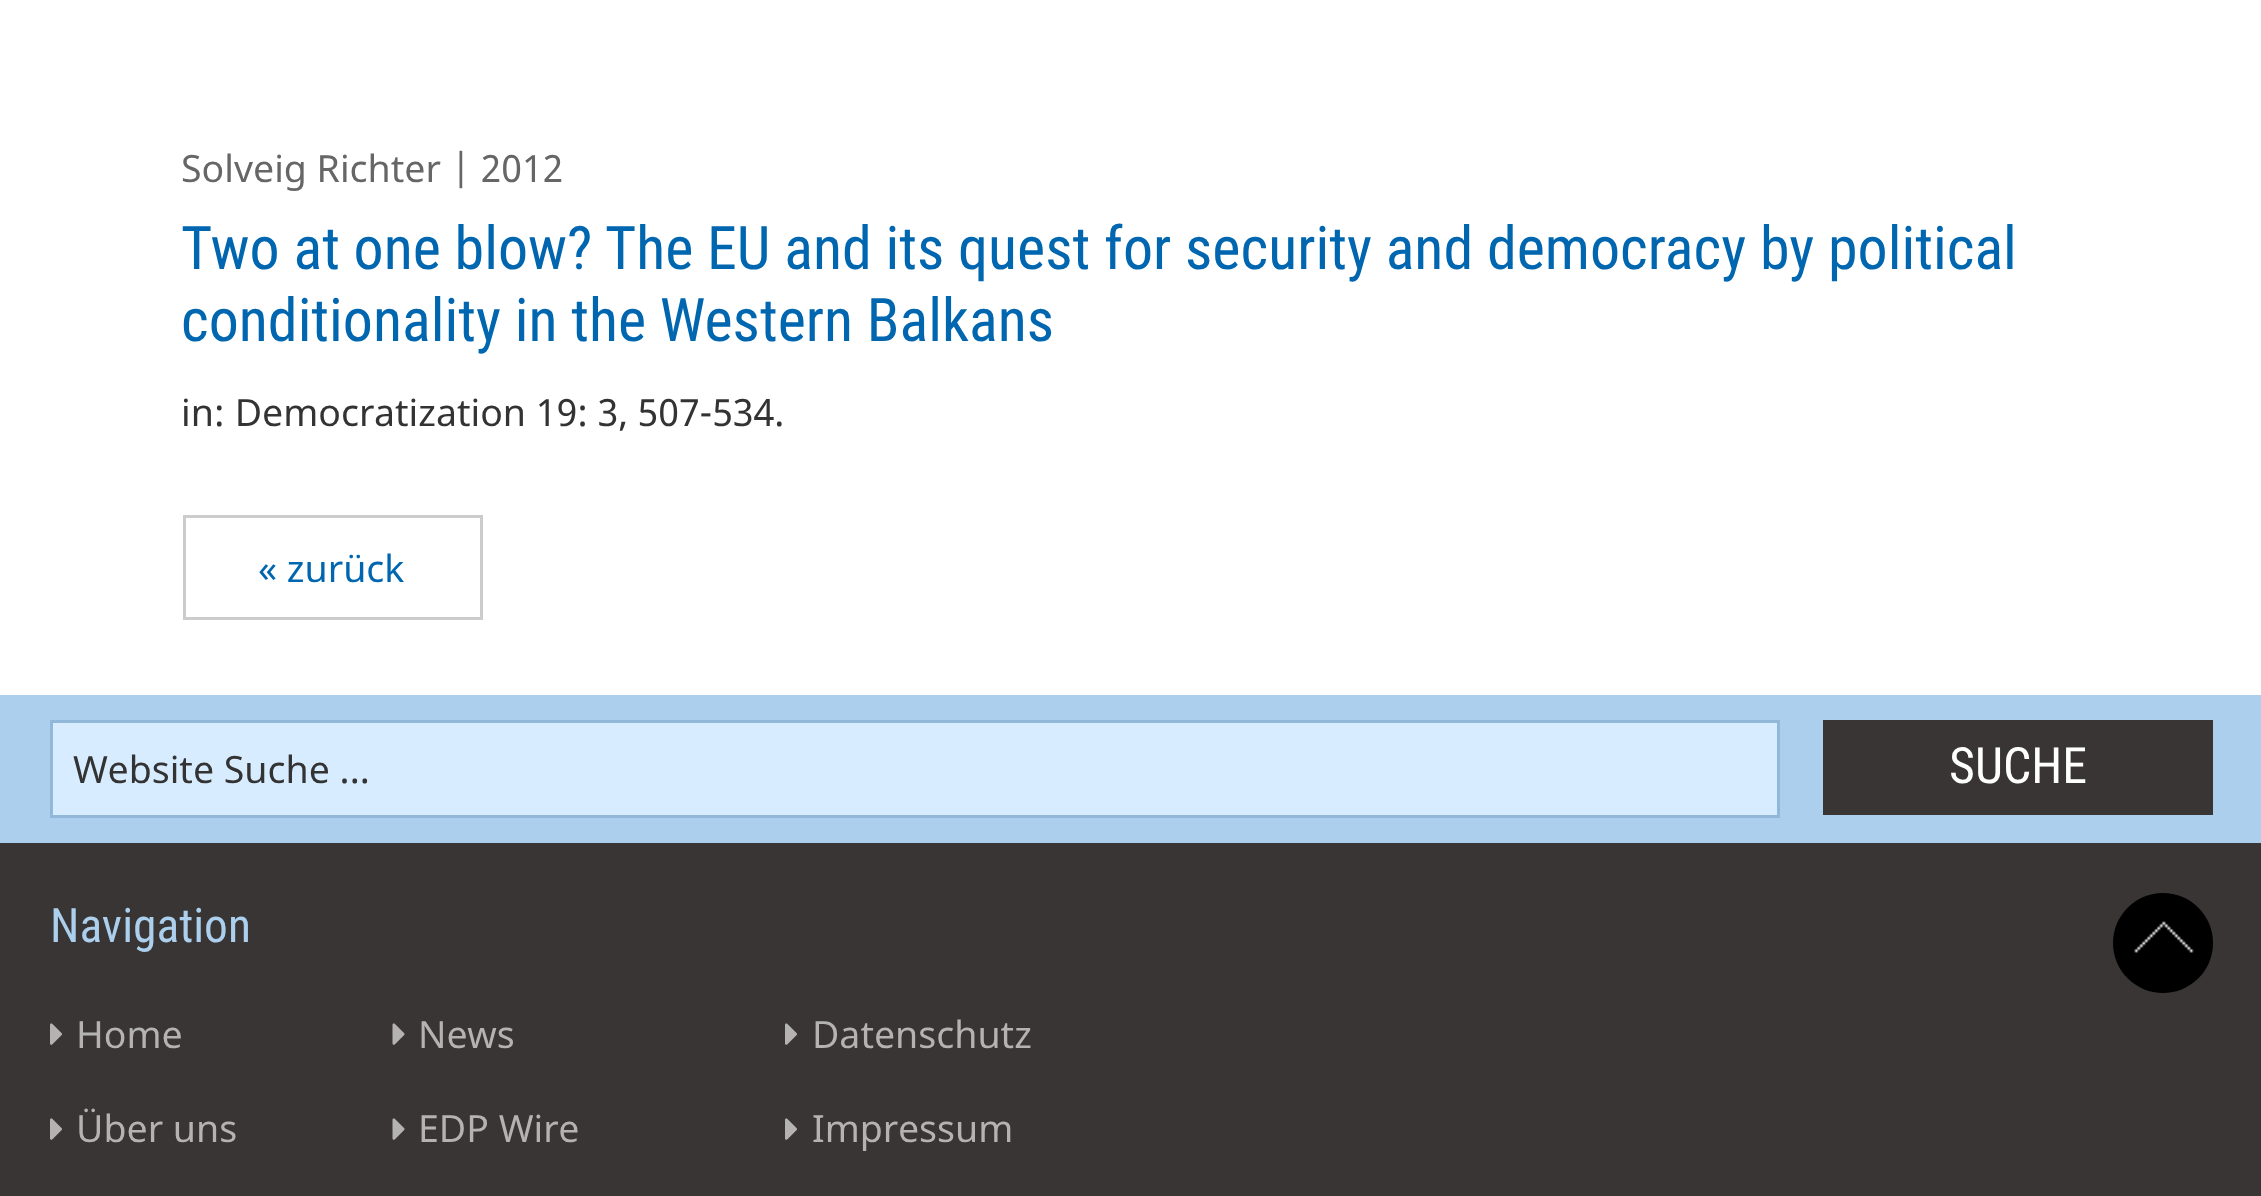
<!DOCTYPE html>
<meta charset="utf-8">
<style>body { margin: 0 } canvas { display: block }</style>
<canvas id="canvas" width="2261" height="1196"></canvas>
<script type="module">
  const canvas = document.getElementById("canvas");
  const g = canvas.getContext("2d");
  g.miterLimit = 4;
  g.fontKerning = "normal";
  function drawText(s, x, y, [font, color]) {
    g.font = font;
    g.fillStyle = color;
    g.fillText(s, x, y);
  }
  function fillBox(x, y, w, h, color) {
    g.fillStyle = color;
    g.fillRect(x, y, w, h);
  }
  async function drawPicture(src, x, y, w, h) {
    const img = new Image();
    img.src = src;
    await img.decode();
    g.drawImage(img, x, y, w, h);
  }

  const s1 = ["37.5px Noto Sans", "#666666"];
  const s2 = ["60px Roboto Condensed", "#0066AF"];
  const s3 = ["37.5px Noto Sans", "#333333"];
  const s4 = ["37.5px Noto Sans", "#0066AF"];
  const s5 = ["50px Roboto Condensed", "#FFFFFF"];
  const s6 = ["47.5px Roboto Condensed", "#ABCFED"];
  const s7 = ["37.5px Noto Sans", "#B4B3B2"];

  fillBox(0, 0, 2261, 1196, "#FFFFFF");
  drawText("Solveig Richter | 2012", 181, 182, s1);
  drawText("Two at one blow? The EU and its quest for security and democracy by political", 181, 269, s2);
  drawText("conditionality in the Western Balkans", 181, 341, s2);
  drawText("in: Democratization 19: 3, 507-534.", 181, 426, s3);
  g.strokeStyle = "#CCCCCC";
  g.lineWidth = 3;
  g.strokeRect(184.5, 516.5, 297, 102);
  drawText("« zurück", 258, 582, s4);
  fillBox(0, 843, 2261, 353, "#383534");
  fillBox(0, 695, 2261, 148, "#ABCFED");
  g.fillStyle = "#D7EDFF";
  g.beginPath();
  g.rect(51.5, 721.5, 1727, 95);
  g.fill();
  g.strokeStyle = "#91B8D8";
  g.stroke();
  drawText("Website Suche ...", 73, 783, s3);
  fillBox(1823, 720, 390, 95, "#383534");
  drawText("SUCHE", 1949, 783, s5);
  drawText("Navigation", 50, 942, s6);
  g.fillStyle = "#000000";
  g.beginPath();
  g.arc(2163, 943, 50, 0, Math.PI * 2);
  g.fill();
  await drawPicture("pic1.png", 2134, 921, 60, 32);
  await drawPicture("pic2.png", 50, 1023, 12, 22);
  drawText("Home", 76, 1048, s7);
  await drawPicture("pic2.png", 50, 1118, 12, 22);
  drawText("Über uns", 76, 1142, s7);
  await drawPicture("pic3.png", 392, 1023, 13, 22);
  drawText("News", 418, 1048, s7);
  await drawPicture("pic3.png", 392, 1118, 13, 22);
  drawText("EDP Wire", 418, 1142, s7);
  await drawPicture("pic2.png", 785, 1023, 12, 22);
  drawText("Datenschutz", 812, 1048, s7);
  await drawPicture("pic2.png", 785, 1118, 12, 22);
  drawText("Impressum", 812, 1142, s7);
</script>
